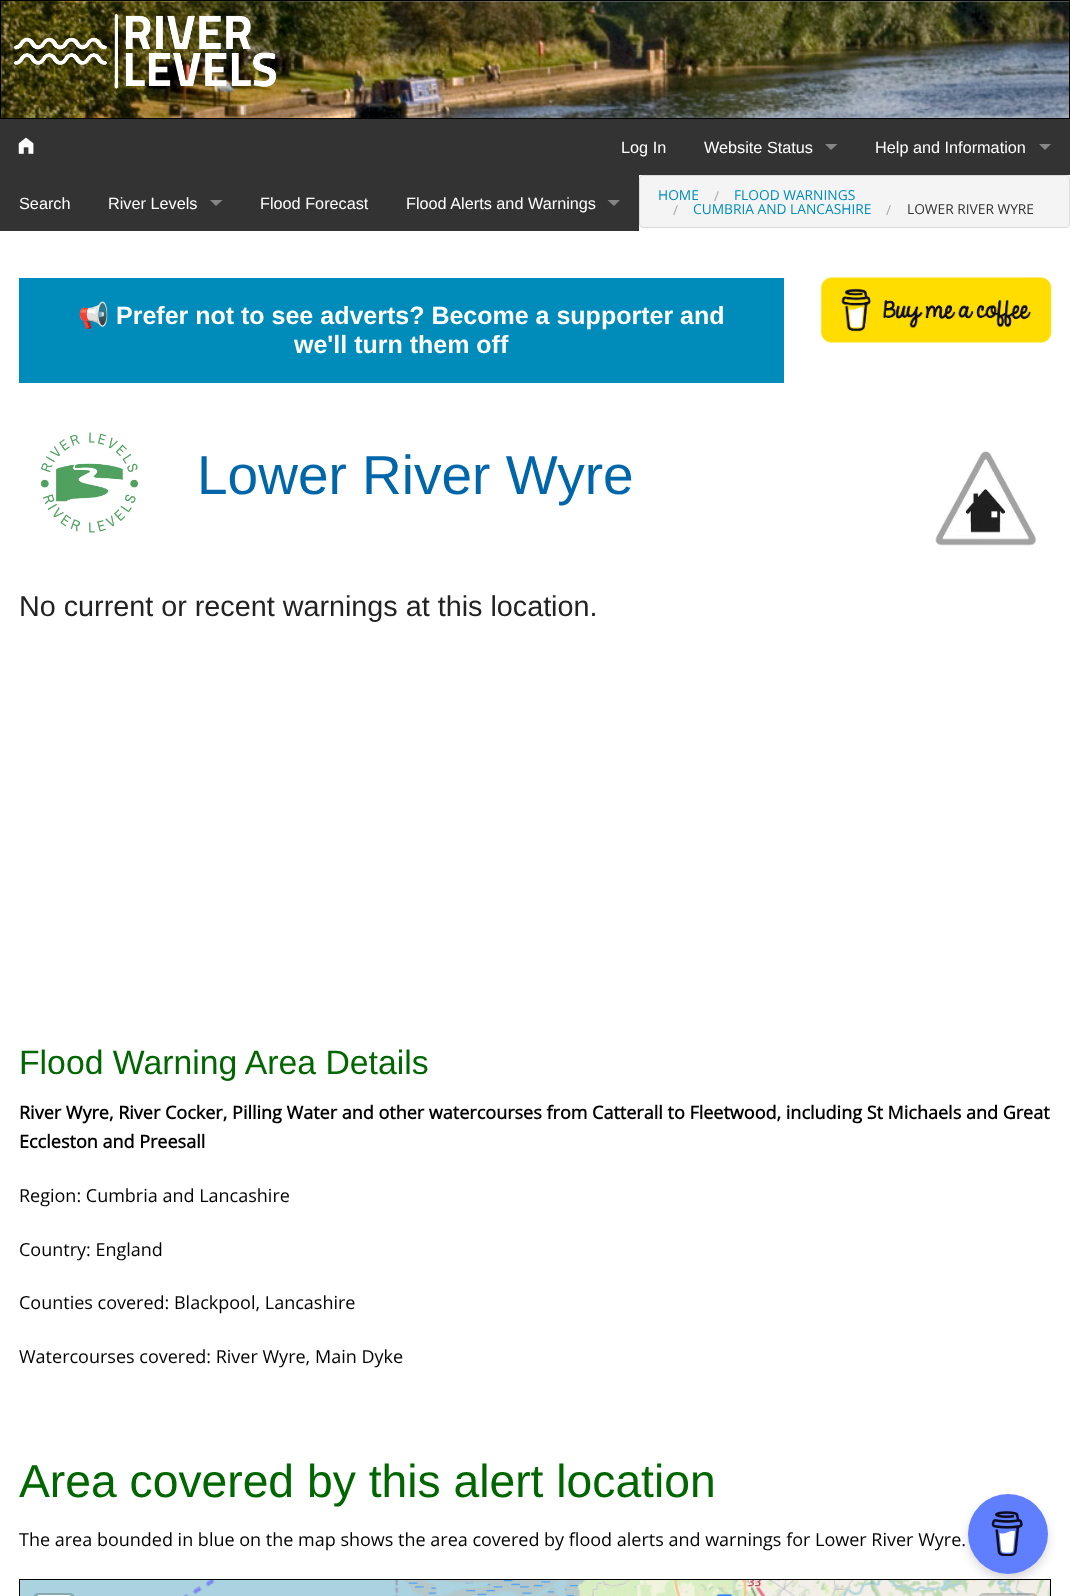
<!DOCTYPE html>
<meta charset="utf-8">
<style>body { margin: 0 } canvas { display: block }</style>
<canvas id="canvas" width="1070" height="1596"></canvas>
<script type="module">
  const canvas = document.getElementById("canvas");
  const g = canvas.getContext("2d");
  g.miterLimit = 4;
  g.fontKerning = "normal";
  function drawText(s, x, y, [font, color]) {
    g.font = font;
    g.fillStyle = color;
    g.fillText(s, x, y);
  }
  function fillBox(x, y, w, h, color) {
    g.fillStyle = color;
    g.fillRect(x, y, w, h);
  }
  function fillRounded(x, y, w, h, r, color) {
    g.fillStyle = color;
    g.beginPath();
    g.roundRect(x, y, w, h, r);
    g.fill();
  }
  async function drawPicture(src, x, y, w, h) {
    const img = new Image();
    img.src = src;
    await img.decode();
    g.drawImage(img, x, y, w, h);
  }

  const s1 = ["16.25px Liberation Sans", "#FFFFFF"];
  const s2 = ["13.75px Open Sans", "#008CBA"];
  const s3 = ["13.75px Open Sans", "#AAAAAA"];
  const s4 = ["13.75px Open Sans", "#333333"];
  const s5 = ["bold 25px Noto Color Emoji", "#FFFFFF"];
  const s6 = ["bold 25px Liberation Sans", "#FFFFFF"];
  const s7 = ["55px Liberation Sans", "#0066AA"];
  const s8 = ["28.75px Liberation Sans", "#222222"];
  const s9 = ["33.75px Liberation Sans", "#006600"];
  const s10 = ["bold 18px Open Sans", "#000000"];
  const s11 = ["18px Open Sans", "#000000"];
  const s12 = ["46.25px Liberation Sans", "#006600"];

  fillBox(0, 0, 1070, 1596, "#FFFFFF");
  await drawPicture("pic1.png", 1, 1, 1068, 117);
  g.strokeStyle = "#000000";
  g.strokeRect(0.5, 0.5, 1069, 118);
  await drawPicture("pic2.png", 13, 13, 264, 76);
  fillBox(0, 119, 1070, 56, "#333333");
  await drawPicture("pic3.png", 18, 137, 16, 17);
  drawText("Log In", 621, 153, s1);
  drawText("Website Status", 704, 153, s1);
  g.fillStyle = "#858585";
  g.beginPath();
  g.moveTo(825, 144);
  g.lineTo(837.5, 144);
  g.lineTo(831, 150);
  g.closePath();
  g.fill();
  drawText("Help and Information", 875, 153, s1);
  g.fillStyle = "#858585";
  g.beginPath();
  g.moveTo(1039, 144);
  g.lineTo(1051, 144);
  g.lineTo(1045, 150);
  g.closePath();
  g.fill();
  fillBox(0, 175, 89, 56, "#333333");
  drawText("Search", 19, 209, s1);
  fillBox(89, 175, 550, 56, "#333333");
  drawText("River Levels", 108, 209, s1);
  g.fillStyle = "#858585";
  g.beginPath();
  g.moveTo(210, 200);
  g.lineTo(222.5, 200);
  g.lineTo(216, 206);
  g.closePath();
  g.fill();
  drawText("Flood Forecast", 260, 209, s1);
  drawText("Flood Alerts and Warnings", 406, 209, s1);
  g.fillStyle = "#858585";
  g.beginPath();
  g.moveTo(607.5, 200);
  g.lineTo(620, 200);
  g.lineTo(614, 206);
  g.closePath();
  g.fill();
  g.fillStyle = "#F4F4F4";
  g.beginPath();
  g.roundRect(639.5, 175.5, 430, 52, 3.5);
  g.fill();
  g.strokeStyle = "#DCDCDC";
  g.stroke();
  drawText("HOME", 658, 200, s2);
  drawText("/", 714, 201, s3);
  drawText("FLOOD WARNINGS", 734, 200, s2);
  drawText("/", 673, 215, s3);
  drawText("CUMBRIA AND LANCASHIRE", 693, 214, s2);
  drawText("/", 886, 215, s3);
  drawText("LOWER RIVER WYRE", 907, 214, s4);
  fillBox(19, 278, 765, 105, "#008CBA");
  drawText("📢", 78, 324, s5);
  drawText("Prefer not to see adverts? Become a supporter and", 116, 324, s6);
  drawText("we'll turn them off", 294, 353, s6);
  await drawPicture("pic4.png", 821, 277, 231, 66);
  await drawPicture("pic5.png", 41, 432, 97, 101);
  drawText("Lower River Wyre", 197, 494, s7);
  await drawPicture("pic6.png", 935, 451, 102, 95);
  drawText("No current or recent warnings at this location.", 19, 616, s8);
  drawText("Flood Warning Area Details", 19, 1074, s9);
  drawText("River Wyre, River Cocker, Pilling Water and other watercourses from Catterall to Fleetwood, including St Michaels and Great", 19, 1119, s10);
  drawText("Eccleston and Preesall", 19, 1148, s10);
  drawText("Region: Cumbria and Lancashire", 19, 1202, s11);
  drawText("Country: England", 19, 1256, s11);
  drawText("Counties covered: Blackpool, Lancashire", 19, 1309, s11);
  drawText("Watercourses covered: River Wyre, Main Dyke", 19, 1363, s11);
  drawText("Area covered by this alert location", 19, 1497, s12);
  drawText("The area bounded in blue on the map shows the area covered by flood alerts and warnings for Lower River Wyre.", 19, 1546, s11);
  g.strokeStyle = "#000000";
  g.strokeRect(19.5, 1579.5, 1031, 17);
  fillBox(20, 1580, 35, 16, "#AAD3DF");
  await drawPicture("pic7.png", 55, 1580, 320, 16);
  await drawPicture("pic8.png", 375, 1580, 320, 16);
  await drawPicture("pic9.png", 695, 1580, 320, 16);
  await drawPicture("pic10.png", 1015, 1580, 35, 16);
  await drawPicture("pic11.png", 716, 1594, 16, 2);
  g.beginPath();
  g.roundRect(34.5, 1594.5, 39, 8, 3.5);
  g.strokeStyle = "#88A9B2";
  g.lineWidth = 3;
  g.stroke();
  g.fillStyle = "#FFFFFF";
  g.beginPath();
  g.moveTo(40, 1595);
  g.lineTo(68, 1595);
  g.bezierCurveTo(71, 1595, 73, 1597, 73, 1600);
  g.lineTo(73, 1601);
  g.lineTo(35, 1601);
  g.lineTo(35, 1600);
  g.bezierCurveTo(35, 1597, 37, 1595, 40, 1595);
  g.closePath();
  g.fill();
  fillRounded(980, 1595, 55, 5, 4, "#FFFFFF");
  g.beginPath();
  g.roundRect(979.5, 1594.5, 57, 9, 4.5);
  g.strokeStyle = "rgba(0, 0, 0, 0.2)";
  g.stroke();
  g.fillStyle = "rgba(0, 0, 0, 0.15)";
  g.filter = "blur(5px)";
  g.beginPath();
  g.roundRect(968, 1499, 80, 80, 40);
  g.fill();
  g.filter = "none";
  g.fillStyle = "#5F7FFF";
  g.beginPath();
  g.arc(1008, 1534, 40, 0, Math.PI * 2);
  g.fill();
  await drawPicture("pic12.png", 991, 1511, 32, 45);
</script>
